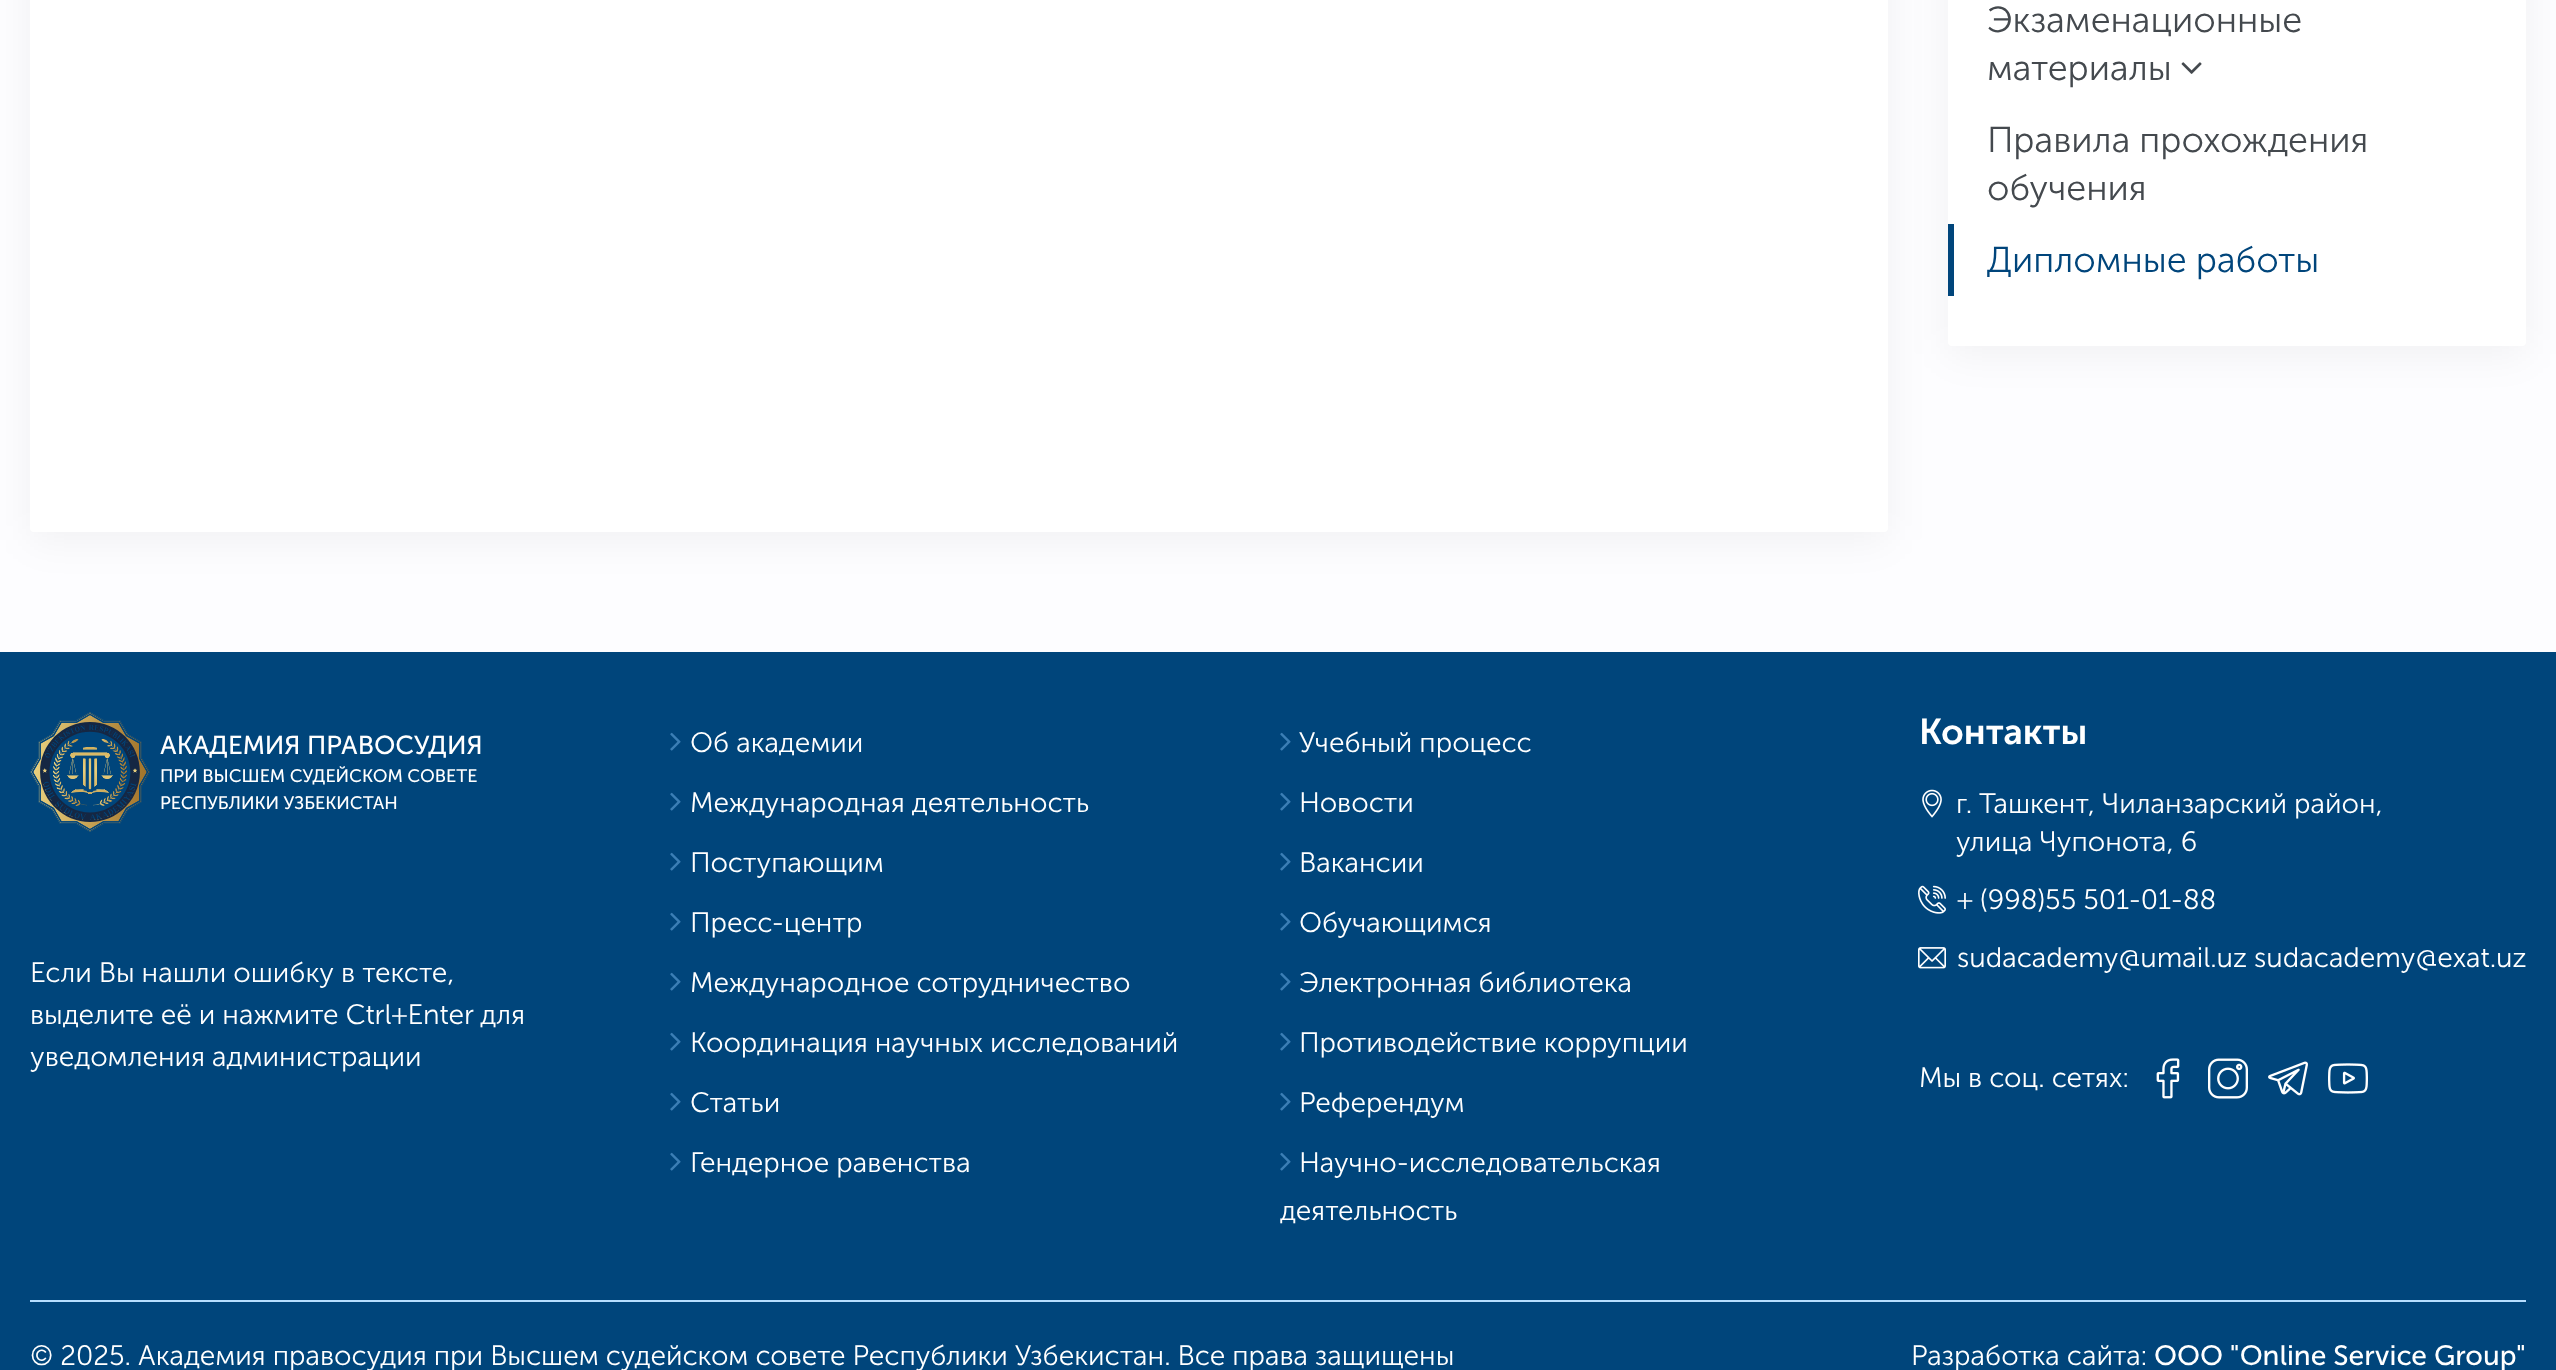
<!DOCTYPE html>
<meta charset="utf-8">
<style>body { margin: 0 } canvas { display: block }</style>
<canvas id="canvas" width="2556" height="1370"></canvas>
<script type="module">
  const canvas = document.getElementById("canvas");
  const g = canvas.getContext("2d");
  g.miterLimit = 4;
  g.fontKerning = "normal";
  function drawText(s, x, y, [font, color]) {
    g.font = font;
    g.fillStyle = color;
    g.fillText(s, x, y);
  }
  function fillBox(x, y, w, h, color) {
    g.fillStyle = color;
    g.fillRect(x, y, w, h);
  }
  function fillRounded(x, y, w, h, r, color) {
    g.fillStyle = color;
    g.beginPath();
    g.roundRect(x, y, w, h, r);
    g.fill();
  }
  async function drawPicture(src, x, y, w, h) {
    const img = new Image();
    img.src = src;
    await img.decode();
    g.drawImage(img, x, y, w, h);
  }

  const s1 = ["300 36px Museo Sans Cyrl", "#44494E"];
  const s2 = ["300 36px Museo Sans Cyrl", "#00457B"];
  const s3 = ["26px Museo Sans Cyrl", "#FFFFFF"];
  const s4 = ["18px Museo Sans Cyrl", "#FFFFFF"];
  const s5 = ["300 28px Museo Sans Cyrl", "#FFFFFF"];
  const s6 = ["600 36px Museo Sans Cyrl", "#FFFFFF"];
  const s7 = ["28px Museo Sans Cyrl", "#FFFFFF"];

  fillBox(0, 0, 2556, 1370, "#FDFDFF");
  g.fillStyle = "rgba(0, 0, 0, 0.05)";
  g.filter = "blur(20px)";
  g.beginPath();
  g.roundRect(30, -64, 1858, 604, 4);
  g.fill();
  g.filter = "none";
  fillRounded(30, -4, 1858, 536, 4, "#FFFFFF");
  g.fillStyle = "rgba(0, 0, 0, 0.05)";
  g.filter = "blur(20px)";
  g.beginPath();
  g.roundRect(1948, -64, 578, 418, 4);
  g.fill();
  g.filter = "none";
  fillRounded(1948, -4, 578, 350, 4, "#FFFFFF");
  drawText("Экзаменационные", 1987, 32, s1);
  drawText("материалы", 1987, 80, s1);
  await drawPicture("pic1.png", 2181, 62, 21, 12);
  drawText("Правила прохождения", 1987, 152, s1);
  drawText("обучения", 1987, 200, s1);
  fillBox(1948, 224, 6, 72, "#00457B");
  drawText("Дипломные работы", 1987, 272, s2);
  fillBox(0, 652, 2556, 718, "#00457B");
  await drawPicture("pic2.png", 30, 712, 120, 120);
  drawText("АКАДЕМИЯ ПРАВОСУДИЯ", 160, 754, s3);
  drawText("ПРИ ВЫСШЕМ СУДЕЙСКОМ СОВЕТЕ", 160, 782, s4);
  drawText("РЕСПУБЛИКИ УЗБЕКИСТАН", 160, 809, s4);
  drawText("Если Вы нашли ошибку в тексте,", 30, 982, s5);
  drawText("выделите её и нажмите Ctrl+Enter для", 30, 1024, s5);
  drawText("уведомления администрации", 30, 1066, s5);
  await drawPicture("pic3.png", 670, 732, 11, 19);
  drawText("Об академии", 690, 752, s5);
  await drawPicture("pic3.png", 1280, 732, 11, 19);
  drawText("Учебный процесс", 1299, 752, s5);
  await drawPicture("pic3.png", 670, 792, 11, 19);
  drawText("Международная деятельность", 690, 812, s5);
  await drawPicture("pic3.png", 1280, 792, 11, 19);
  drawText("Новости", 1299, 812, s5);
  await drawPicture("pic3.png", 670, 852, 11, 19);
  drawText("Поступающим", 690, 872, s5);
  await drawPicture("pic3.png", 1280, 852, 11, 19);
  drawText("Вакансии", 1299, 872, s5);
  await drawPicture("pic3.png", 670, 912, 11, 19);
  drawText("Пресс-центр", 690, 932, s5);
  await drawPicture("pic3.png", 1280, 912, 11, 19);
  drawText("Обучающимся", 1299, 932, s5);
  await drawPicture("pic3.png", 670, 972, 11, 19);
  drawText("Международное сотрудничество", 690, 992, s5);
  await drawPicture("pic3.png", 1280, 972, 11, 19);
  drawText("Электронная библиотека", 1299, 992, s5);
  await drawPicture("pic3.png", 670, 1032, 11, 19);
  drawText("Координация научных исследований", 690, 1052, s5);
  await drawPicture("pic3.png", 1280, 1032, 11, 19);
  drawText("Противодействие коррупции", 1299, 1052, s5);
  await drawPicture("pic3.png", 670, 1092, 11, 19);
  drawText("Статьи", 690, 1112, s5);
  await drawPicture("pic3.png", 1280, 1092, 11, 19);
  drawText("Референдум", 1299, 1112, s5);
  await drawPicture("pic3.png", 670, 1152, 11, 19);
  drawText("Гендерное равенства", 690, 1172, s5);
  await drawPicture("pic3.png", 1280, 1152, 11, 19);
  drawText("Научно-исследовательская", 1299, 1172, s5);
  drawText("деятельность", 1280, 1220, s5);
  drawText("Контакты", 1919, 744, s6);
  await drawPicture("pic4.png", 1922, 789, 20, 29);
  drawText("г. Ташкент, Чиланзарский район,", 1956, 813, s5);
  drawText("улица Чупонота, 6", 1956, 851, s5);
  await drawPicture("pic5.png", 1918, 885, 28, 29);
  drawText("+ (998)55 501-01-88", 1957, 909, s5);
  await drawPicture("pic6.png", 1918, 947, 28, 22);
  drawText("sudacademy@umail.uz sudacademy@exat.uz", 1957, 967, s5);
  drawText("Мы в соц. сетях:", 1919, 1087, s5);
  await drawPicture("pic7.png", 2156, 1058, 24, 41);
  await drawPicture("pic8.png", 2208, 1058, 40, 41);
  await drawPicture("pic9.png", 2268, 1061, 40, 35);
  await drawPicture("pic10.png", 2328, 1063, 40, 31);
  fillBox(30, 1300, 2496, 2, "#B7DEFF");
  drawText("© 2025. Академия правосудия при Высшем судейском совете Республики Узбекистан. Все права защищены", 30, 1365, s5);
  drawText("Разработка сайта:", 1911, 1365, s5);
  drawText("ООО \"Online Service Group\"", 2154, 1365, s7);
</script>
